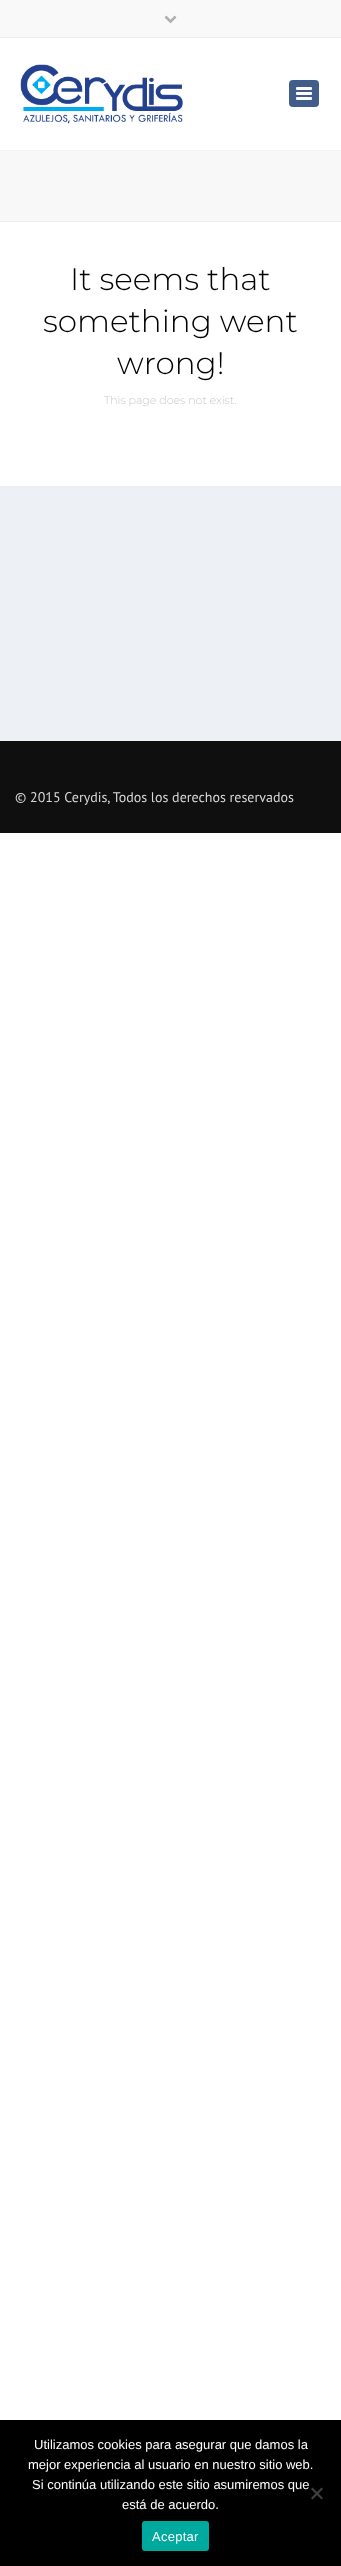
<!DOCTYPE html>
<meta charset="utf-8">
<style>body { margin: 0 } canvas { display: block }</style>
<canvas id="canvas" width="341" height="2566"></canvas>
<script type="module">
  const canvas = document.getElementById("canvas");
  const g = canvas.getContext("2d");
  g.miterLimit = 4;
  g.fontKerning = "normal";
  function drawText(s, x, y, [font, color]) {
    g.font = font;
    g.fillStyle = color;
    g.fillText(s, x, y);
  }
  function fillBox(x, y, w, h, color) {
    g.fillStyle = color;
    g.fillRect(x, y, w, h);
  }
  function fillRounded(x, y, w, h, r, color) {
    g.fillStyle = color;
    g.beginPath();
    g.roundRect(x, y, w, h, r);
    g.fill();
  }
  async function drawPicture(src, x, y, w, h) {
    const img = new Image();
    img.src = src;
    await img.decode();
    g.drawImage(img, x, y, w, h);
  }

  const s1 = ["300 31px Montserrat", "#000000"];
  const s2 = ["300 11px Montserrat", "#C7C7C7"];
  const s3 = ["14px PT Sans", "#D9D9D9"];
  const s4 = ["13px Liberation Sans", "#FFFFFF"];

  fillBox(0, 0, 341, 2566, "#FFFFFF");
  fillBox(0, 0, 341, 37, "#F9F9F9");
  fillBox(0, 37, 341, 1, "#EDEDED");
  await drawPicture("pic1.png", 164, 15, 13, 9);
  fillBox(0, 150, 341, 1, "#F2F2F2");
  await drawPicture("pic2.png", 20, 64, 163, 60);
  fillRounded(289, 80, 30, 27, 4, "#415E8A");
  fillRounded(296, 87, 16, 3, 1, "#FFFFFF");
  fillRounded(296, 92, 16, 3, 1, "#FFFFFF");
  fillRounded(296, 97, 16, 3, 1, "#FFFFFF");
  fillBox(0, 151, 341, 70, "#F8F8F8");
  fillBox(0, 221, 341, 1, "#EDEDED");
  drawText("It seems that", 70, 290, s1);
  drawText("something went", 43, 332, s1);
  drawText("wrong!", 117, 374, s1);
  drawText("This page does not exist.", 104, 404, s2);
  fillBox(0, 486, 341, 255, "#EDF0F5");
  fillBox(0, 741, 341, 92, "#0F0F0F");
  drawText("© 2015 Cerydis, Todos los derechos reservados", 15, 802, s3);
  fillBox(0, 2420, 341, 146, "#000000");
  drawText("Utilizamos cookies para asegurar que damos la", 34, 2449, s4);
  drawText("mejor experiencia al usuario en nuestro sitio web.", 28, 2469, s4);
  drawText("Si continúa utilizando este sitio asumiremos que", 32, 2489, s4);
  drawText("está de acuerdo.", 122, 2509, s4);
  g.fillStyle = "#404040";
  g.beginPath();
  g.moveTo(321.5, 2487.5);
  g.lineTo(323, 2489);
  g.lineTo(312.5, 2499.5);
  g.lineTo(311, 2498);
  g.closePath();
  g.fill();
  g.beginPath();
  g.moveTo(311, 2489);
  g.lineTo(312.5, 2487.5);
  g.lineTo(323, 2498);
  g.lineTo(321.5, 2499.5);
  g.closePath();
  g.fill();
  fillRounded(142, 2521, 67, 30, 3, "#00A99D");
  g.letterSpacing = "0.25px";
  drawText("Aceptar", 152, 2541, s4);
</script>
